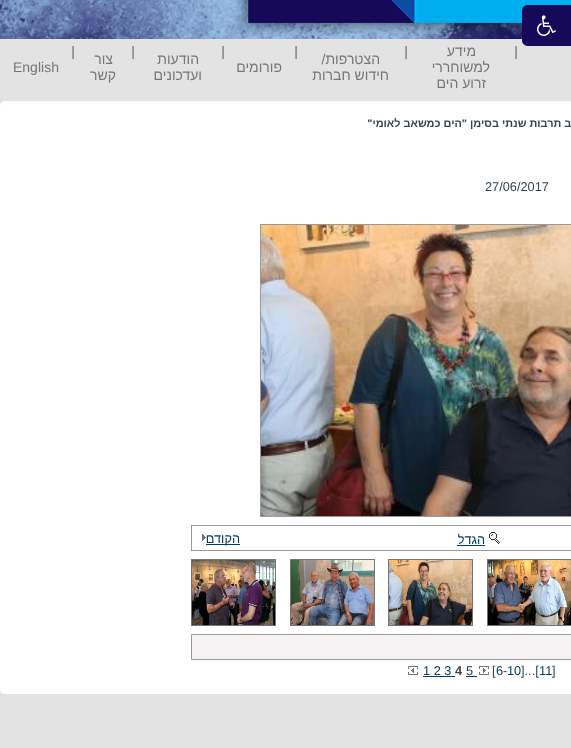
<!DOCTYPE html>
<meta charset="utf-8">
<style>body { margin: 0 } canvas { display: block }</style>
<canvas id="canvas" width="571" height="748"></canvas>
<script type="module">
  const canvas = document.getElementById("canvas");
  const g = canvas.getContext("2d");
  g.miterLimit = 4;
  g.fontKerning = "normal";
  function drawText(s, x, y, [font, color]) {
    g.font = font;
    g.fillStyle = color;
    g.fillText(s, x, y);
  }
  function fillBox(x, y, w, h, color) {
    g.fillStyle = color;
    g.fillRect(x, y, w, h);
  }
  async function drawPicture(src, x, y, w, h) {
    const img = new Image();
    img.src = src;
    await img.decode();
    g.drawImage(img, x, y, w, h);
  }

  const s1 = ["14px Liberation Sans", "#777676"];
  const s2 = ["bold 10.9px Liberation Sans", "#324750"];
  const s3 = ["12.75px Liberation Sans", "#324750"];
  const s4 = ["12.75px Liberation Sans", "#023C67"];
  const s5 = ["bold 12.75px Liberation Sans", "#324750"];

  fillBox(0, 0, 571, 748, "#E4E3E3");
  await drawPicture("pic2.png", 0, 0, 571, 39);
  g.fillStyle = "#160959";
  g.beginPath();
  g.moveTo(528, 5);
  g.lineTo(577, 5);
  g.lineTo(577, 46);
  g.lineTo(528, 46);
  g.bezierCurveTo(524.5, 46, 522, 43.5, 522, 40);
  g.lineTo(522, 11);
  g.bezierCurveTo(522, 7.5, 524.5, 5, 528, 5);
  g.closePath();
  g.fill();
  await drawPicture("pic1.png", 537, 15, 19, 21);
  await drawPicture("pic3.png", 515, 46, 2, 13);
  g.direction = "rtl";
  drawText("מידע", 476, 56, s1);
  drawText("למשוחררי", 490, 72, s1);
  drawText("זרוע הים", 486, 88, s1);
  await drawPicture("pic3.png", 405, 46, 2, 13);
  drawText("הצטרפות/", 380, 64, s1);
  drawText("חידוש חברות", 389, 80, s1);
  await drawPicture("pic3.png", 295, 46, 2, 13);
  drawText("פורומים", 282, 72, s1);
  await drawPicture("pic3.png", 222, 46, 2, 13);
  drawText("הודעות", 199, 64, s1);
  drawText("ועדכונים", 202, 80, s1);
  await drawPicture("pic3.png", 132, 46, 2, 13);
  drawText("צור", 113, 64, s1);
  drawText("קשר", 116, 80, s1);
  await drawPicture("pic3.png", 72, 46, 2, 13);
  g.direction = "ltr";
  drawText("English", 13, 72, s1);
  fillBox(0, 106, 571, 583, "#FFFFFF");
  fillBox(2, 101, 1, 1, "#ECEBEB");
  fillBox(3, 101, 1, 1, "#F8F8F8");
  fillBox(4, 101, 567, 1, "#FEFEFE");
  fillBox(1, 102, 1, 1, "#F2F1F1");
  fillBox(2, 102, 569, 1, "#FFFFFF");
  fillBox(0, 103, 1, 1, "#ECEBEB");
  fillBox(1, 103, 570, 2, "#FFFFFF");
  fillBox(0, 104, 1, 1, "#F8F8F8");
  fillBox(0, 105, 571, 1, "#FEFEFE");
  g.direction = "rtl";
  drawText("ערב תרבות שנתי בסימן \"הים כמשאב לאומי\"", 584, 127, s2);
  g.direction = "ltr";
  drawText("27/06/2017", 485, 191, s3);
  g.strokeStyle = "#9A9A9A";
  g.strokeRect(260.5, 224.5, 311, 292);
  await drawPicture("pic4.png", 261, 225, 310, 291);
  g.strokeRect(191.5, 525.5, 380, 25);
  await drawPicture("pic5.png", 489, 532, 11, 12);
  g.direction = "rtl";
  drawText("הגדל", 485, 544, s4);
  fillBox(457, 545, 28, 1, "#023C67");
  fillBox(206, 544, 34, 1, "#023C67");
  drawText("הקודם", 240, 543, s4);
  await drawPicture("pic6.png", 202, 534, 4, 7);
  g.strokeStyle = "#757575";
  g.strokeRect(487.5, 559.5, 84, 66);
  await drawPicture("pic7.png", 488, 560, 83, 65);
  g.strokeRect(388.5, 559.5, 84, 66);
  await drawPicture("pic8.png", 389, 560, 83, 65);
  g.strokeRect(290.5, 559.5, 84, 66);
  await drawPicture("pic9.png", 291, 560, 83, 65);
  g.strokeRect(191.5, 559.5, 84, 66);
  await drawPicture("pic10.png", 192, 560, 83, 65);
  g.fillStyle = "#F5F3F4";
  g.beginPath();
  g.rect(191.5, 634.5, 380, 25);
  g.fill();
  g.strokeStyle = "#9A9A9A";
  g.stroke();
  g.direction = "ltr";
  drawText("]", 552, 675, s3);
  drawText("11", 539, 675, s4);
  drawText("]...[", 521, 675, s3);
  drawText("10", 507, 675, s4);
  drawText("-", 503, 675, s3);
  drawText("6", 496, 675, s4);
  drawText("[", 492, 675, s3);
  await drawPicture("pic11.png", 479, 666, 10, 9);
  drawText("5", 466, 675, s4);
  fillBox(466, 676, 11, 1, "#023C67");
  drawText("4", 455, 675, s5);
  drawText("1 2 3", 423, 675, s4);
  fillBox(423, 676, 32, 1, "#023C67");
  await drawPicture("pic12.png", 408, 666, 10, 9);
  fillBox(0, 689, 571, 1, "#FEFEFE");
  fillBox(0, 690, 1, 1, "#F8F8F8");
  fillBox(1, 690, 570, 2, "#FFFFFF");
  fillBox(0, 691, 1, 1, "#ECEBEB");
  fillBox(1, 692, 1, 1, "#F2F1F1");
  fillBox(2, 692, 569, 1, "#FFFFFF");
  fillBox(2, 693, 1, 1, "#ECEBEB");
  fillBox(3, 693, 1, 1, "#F8F8F8");
  fillBox(4, 693, 567, 1, "#FEFEFE");
</script>
